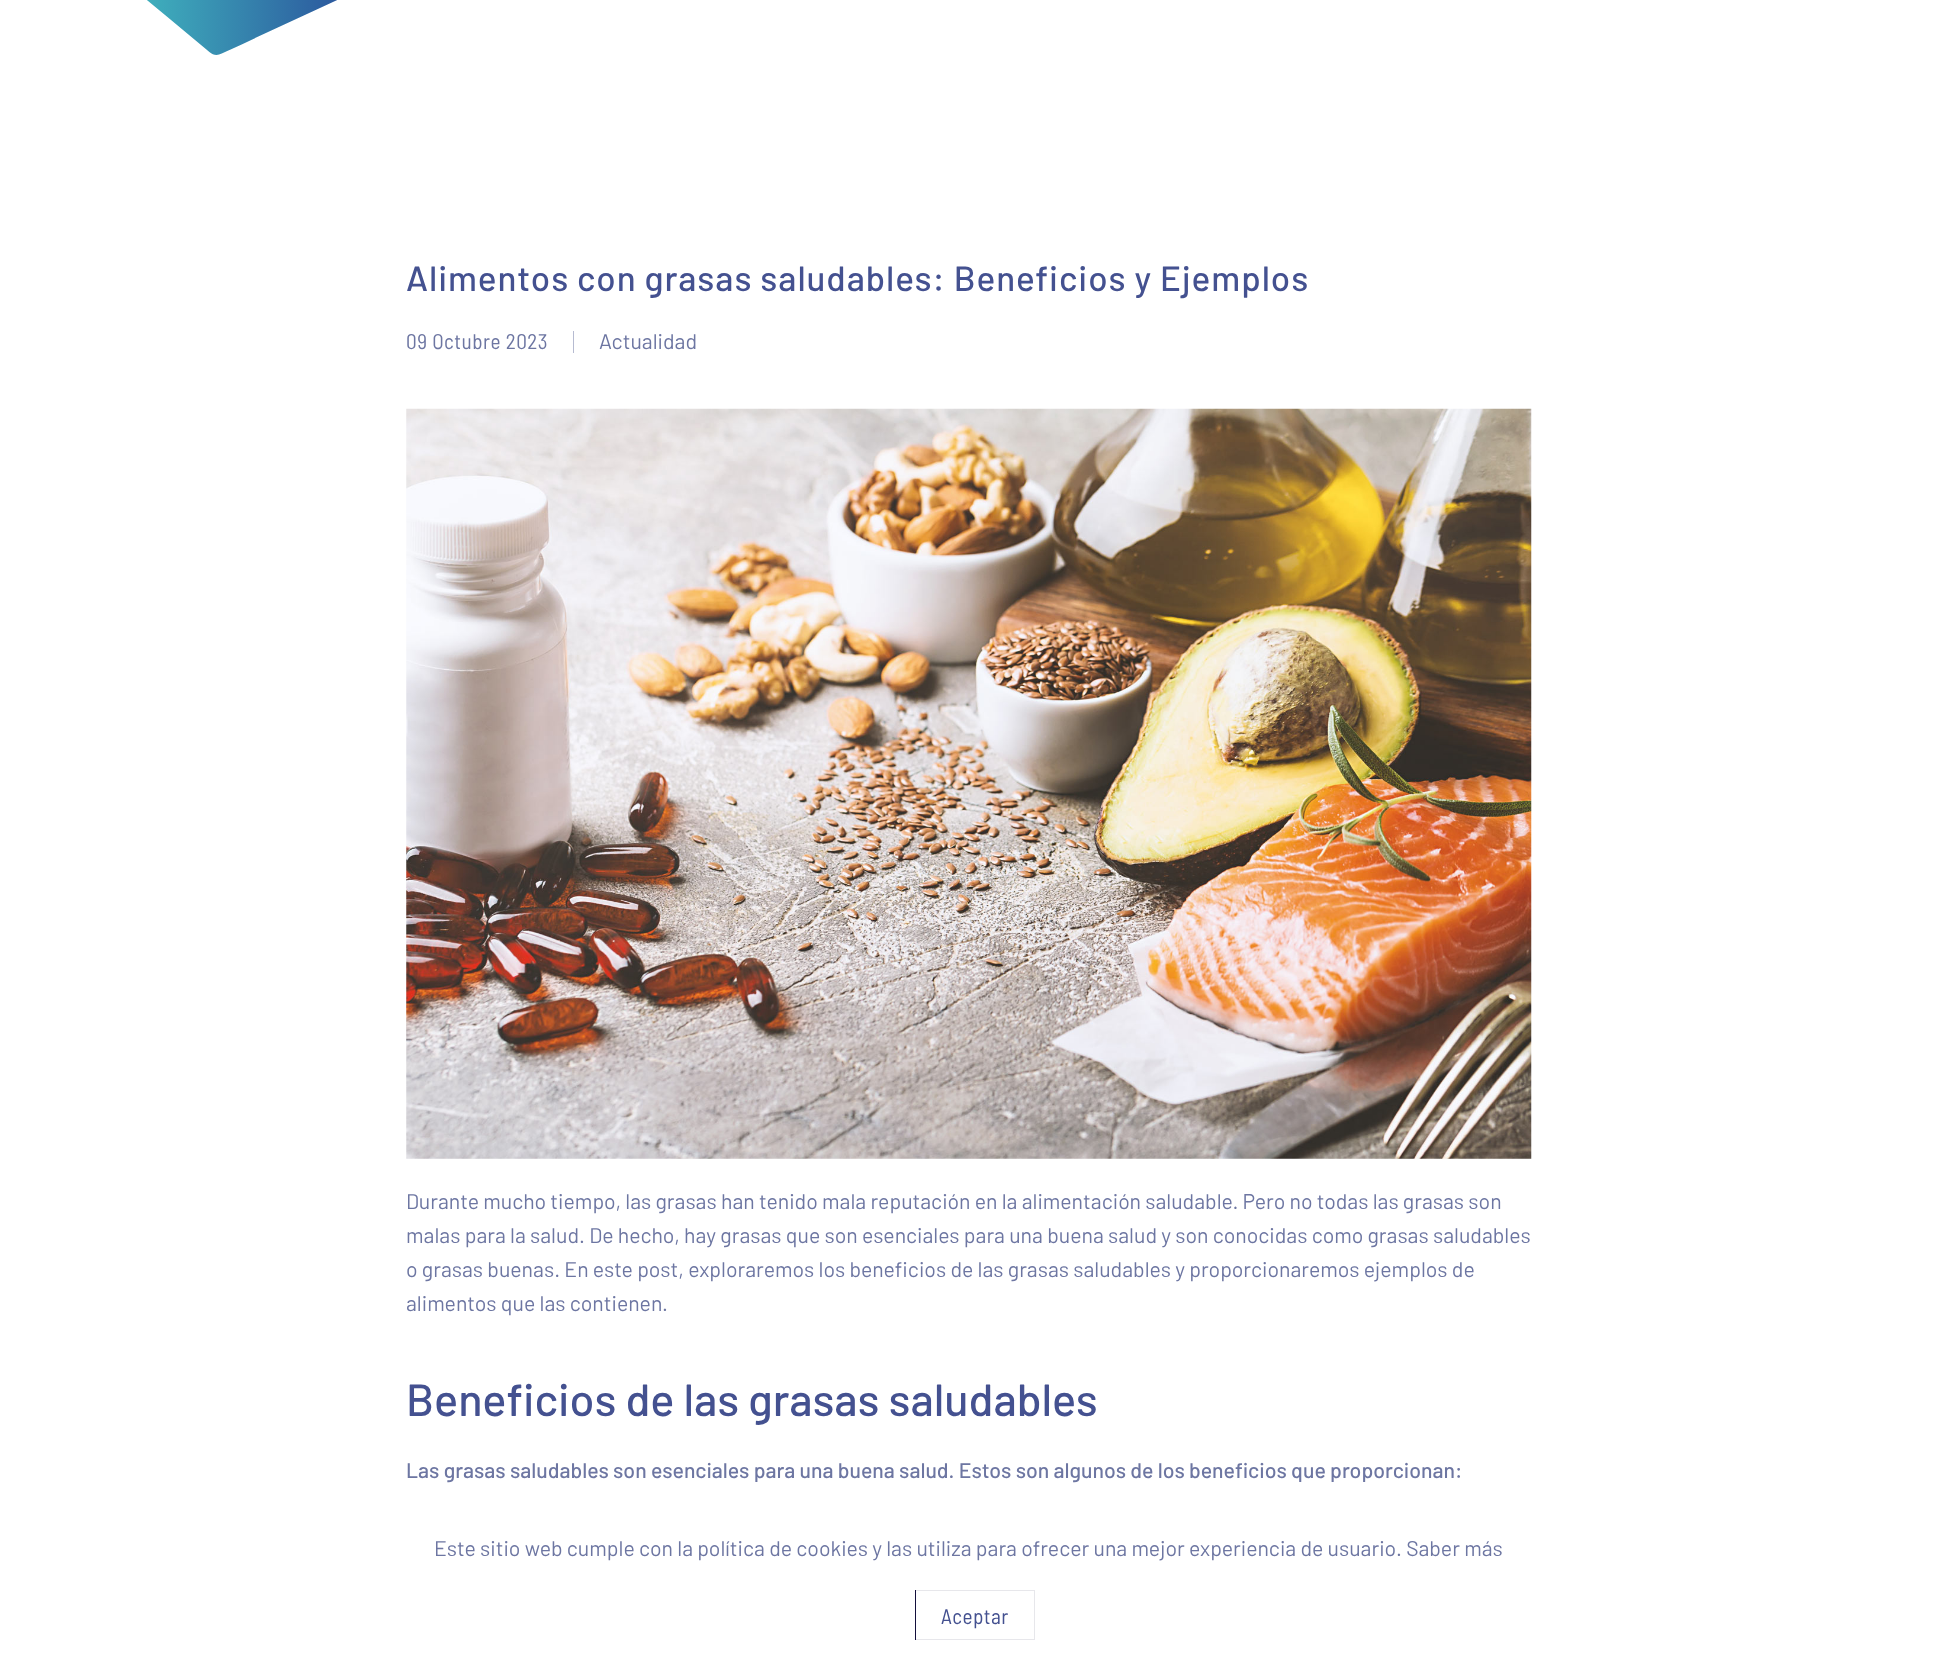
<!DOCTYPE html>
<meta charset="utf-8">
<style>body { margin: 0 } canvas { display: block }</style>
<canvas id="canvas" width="1937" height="1665"></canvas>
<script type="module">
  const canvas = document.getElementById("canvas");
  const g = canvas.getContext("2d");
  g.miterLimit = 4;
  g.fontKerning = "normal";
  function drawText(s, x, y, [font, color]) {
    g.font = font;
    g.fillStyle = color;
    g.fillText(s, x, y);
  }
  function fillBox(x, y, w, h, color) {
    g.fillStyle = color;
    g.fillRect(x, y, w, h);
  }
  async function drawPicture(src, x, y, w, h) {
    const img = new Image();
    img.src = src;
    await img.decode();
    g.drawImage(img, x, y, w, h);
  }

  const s1 = ["500 35px Barlow", "#445190"];
  const s2 = ["21.25px Barlow Semi Condensed", "#6D76A2"];
  const s3 = ["21.25px Barlow", "#6D76A2"];
  const s4 = ["500 45px Barlow", "#445190"];
  const s5 = ["500 21.25px Barlow", "#6D76A2"];
  const s6 = ["21.25px Barlow Semi Condensed", "#445190"];

  fillBox(0, 0, 1937, 1665, "#FFFFFF");
  await drawPicture("pic1.png", 147, 0, 190, 55);
  g.letterSpacing = "0.95px";
  drawText("Alimentos con grasas saludables: Beneficios y Ejemplos", 406, 291, s1);
  g.letterSpacing = "0.5px";
  drawText("09 Octubre 2023", 406, 349, s2);
  fillBox(573, 331, 1, 22, "#B6BBD1");
  g.letterSpacing = "0px";
  drawText("Actualidad", 599, 349, s3);
  await drawPicture("pic2.png", 406, 408, 1126, 751);
  drawText("Durante mucho tiempo, las grasas han tenido mala reputación en la alimentación saludable. Pero no todas las grasas son", 406, 1209, s3);
  drawText("malas para la salud. De hecho, hay grasas que son esenciales para una buena salud y son conocidas como grasas saludables", 406, 1243, s3);
  drawText("o grasas buenas. En este post, exploraremos los beneficios de las grasas saludables y proporcionaremos ejemplos de", 406, 1277, s3);
  drawText("alimentos que las contienen.", 406, 1311, s3);
  drawText("Beneficios de las grasas saludables", 406, 1416, s4);
  drawText("Las grasas saludables son esenciales para una buena salud. Estos son algunos de los beneficios que proporcionan:", 406, 1478, s5);
  drawText("Este sitio web cumple con la política de cookies y las utiliza para ofrecer una mejor experiencia de usuario. Saber más", 434, 1556, s3);
  fillBox(915, 1590, 1, 50, "#140F3D");
  g.strokeStyle = "rgba(20, 15, 61, 0.1)";
  g.strokeRect(915.5, 1590.5, 119, 49);
  g.letterSpacing = "0.5px";
  drawText("Aceptar", 941, 1624, s6);
</script>
